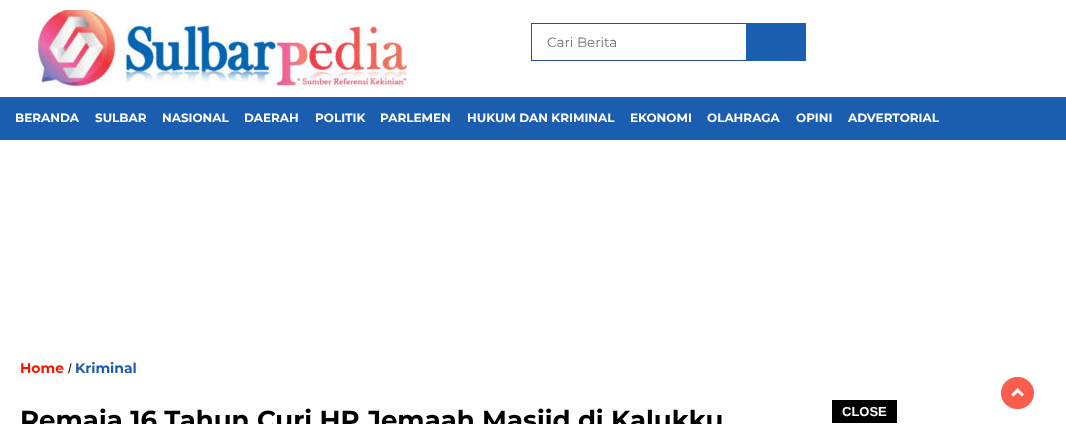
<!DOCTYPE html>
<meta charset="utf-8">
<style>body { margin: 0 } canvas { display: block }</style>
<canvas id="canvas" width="1066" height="424"></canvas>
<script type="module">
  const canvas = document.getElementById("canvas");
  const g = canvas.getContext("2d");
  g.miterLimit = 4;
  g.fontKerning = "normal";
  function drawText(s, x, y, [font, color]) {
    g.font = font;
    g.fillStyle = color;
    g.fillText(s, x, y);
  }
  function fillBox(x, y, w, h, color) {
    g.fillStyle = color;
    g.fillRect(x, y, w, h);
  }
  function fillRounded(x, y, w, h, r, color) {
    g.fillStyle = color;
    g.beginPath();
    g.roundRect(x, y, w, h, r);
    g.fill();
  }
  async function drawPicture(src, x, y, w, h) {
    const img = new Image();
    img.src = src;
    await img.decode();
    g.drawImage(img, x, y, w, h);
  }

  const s1 = ["13.5px Montserrat", "#757575"];
  const s2 = ["bold 12px Montserrat", "#FFFFFF"];
  const s3 = ["bold 14px Montserrat", "#F51700"];
  const s4 = ["13px Liberation Sans", "#000000"];
  const s5 = ["bold 14px Montserrat", "#1B5DAF"];
  const s6 = ["bold 26px Montserrat", "#000000"];
  const s7 = ["bold 13px Liberation Sans", "#FFFFFF"];

  fillBox(0, 0, 1066, 424, "#FFFFFF");
  await drawPicture("pic1.png", 31, 10, 378, 77);
  g.strokeStyle = "#284A9A";
  g.strokeRect(531.5, 23.5, 215, 37);
  drawText("Cari Berita", 547, 47, s1);
  fillBox(746, 23, 60, 38, "#1B5DAF");
  fillBox(0, 97, 1066, 43, "#1B5DAF");
  drawText("BERANDA", 15, 122, s2);
  drawText("SULBAR", 95, 122, s2);
  drawText("NASIONAL", 162, 122, s2);
  drawText("DAERAH", 244, 122, s2);
  drawText("POLITIK", 315, 122, s2);
  drawText("PARLEMEN", 380, 122, s2);
  drawText("HUKUM DAN KRIMINAL", 467, 122, s2);
  drawText("EKONOMI", 630, 122, s2);
  drawText("OLAHRAGA", 707, 122, s2);
  drawText("OPINI", 796, 122, s2);
  drawText("ADVERTORIAL", 848, 122, s2);
  drawText("Home", 20, 373, s3);
  drawText("/", 68, 373, s4);
  drawText("Kriminal", 75, 373, s5);
  drawText("Remaja 16 Tahun Curi HP Jemaah Masjid di Kalukku", 20, 429, s6);
  fillRounded(1001, 377, 33, 32, 16, "#F85D4D");
  g.fillStyle = "#FFFFFF";
  g.beginPath();
  g.moveTo(1013.5, 396.5);
  g.lineTo(1011, 394.5);
  g.lineTo(1017.5, 388);
  g.lineTo(1019.5, 390.5);
  g.closePath();
  g.fill();
  g.beginPath();
  g.moveTo(1022, 396.5);
  g.lineTo(1015.5, 390.5);
  g.lineTo(1017.5, 388);
  g.lineTo(1024, 394.5);
  g.closePath();
  g.fill();
  fillBox(832, 400, 65, 23, "#000000");
  drawText("CLOSE", 842, 416, s7);
</script>
